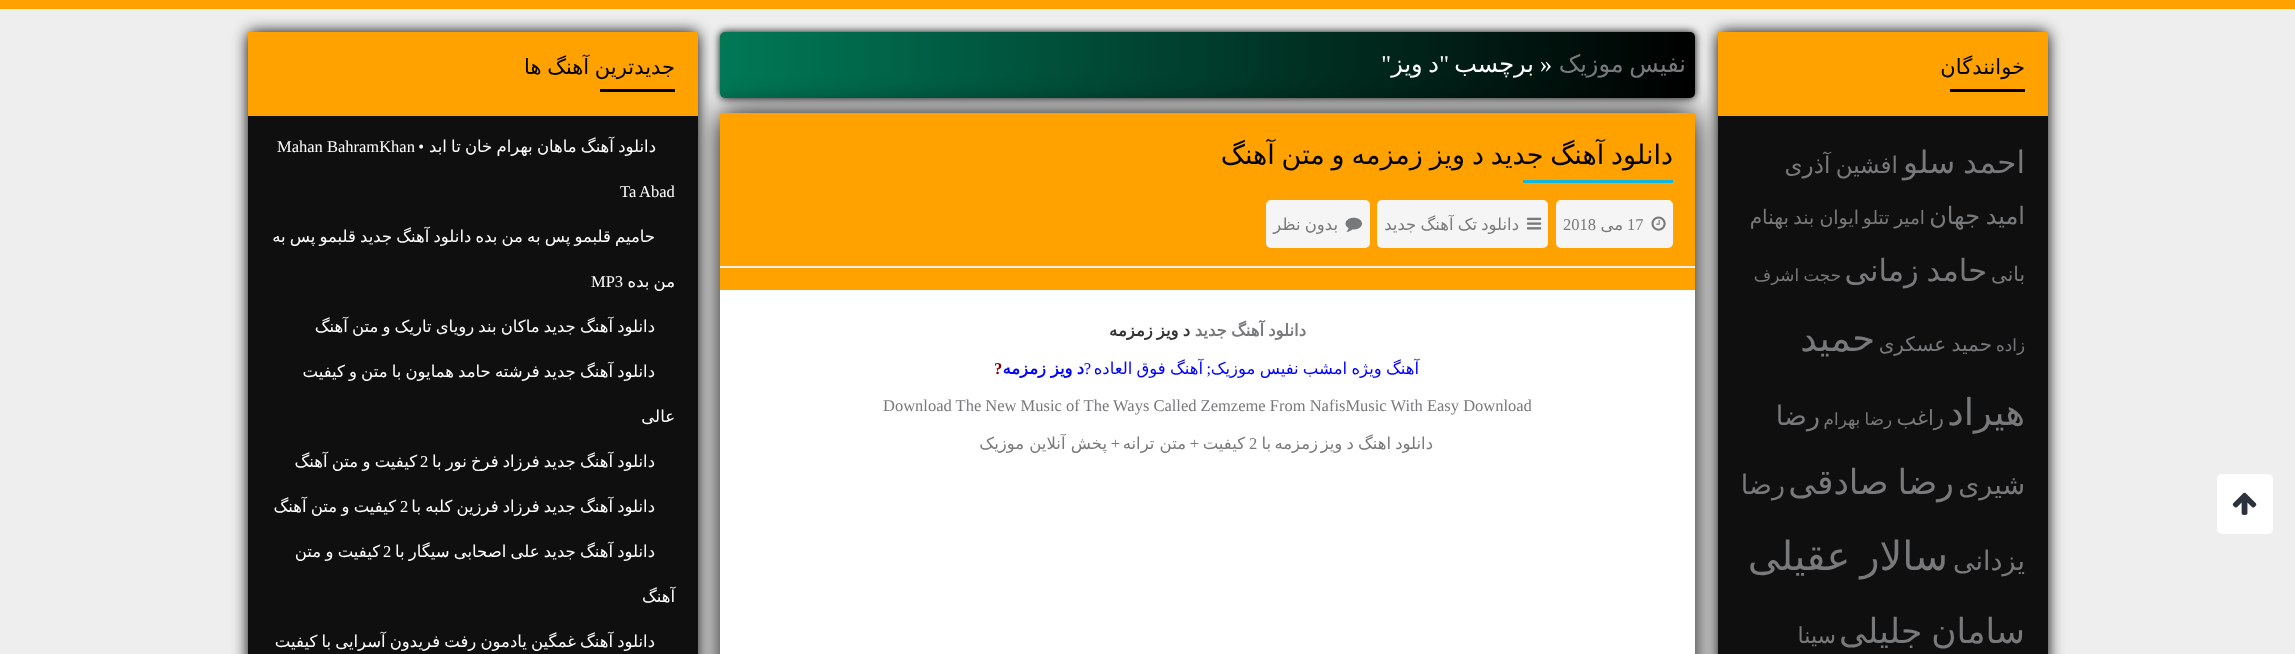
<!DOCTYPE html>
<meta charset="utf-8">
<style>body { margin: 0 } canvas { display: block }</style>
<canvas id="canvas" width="2295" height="654"></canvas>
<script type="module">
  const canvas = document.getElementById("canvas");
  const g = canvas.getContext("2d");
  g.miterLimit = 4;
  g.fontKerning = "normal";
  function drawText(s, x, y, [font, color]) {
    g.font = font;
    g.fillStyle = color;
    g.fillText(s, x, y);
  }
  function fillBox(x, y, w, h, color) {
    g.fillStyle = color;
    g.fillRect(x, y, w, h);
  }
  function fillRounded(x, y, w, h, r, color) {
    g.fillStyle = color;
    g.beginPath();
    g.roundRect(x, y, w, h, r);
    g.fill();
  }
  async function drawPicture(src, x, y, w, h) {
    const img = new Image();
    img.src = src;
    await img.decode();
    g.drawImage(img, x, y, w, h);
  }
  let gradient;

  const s1 = ["21px DejaVu Sans", "#000000"];
  const s2 = ["31px DejaVu Sans", "#78797B"];
  const s3 = ["23px DejaVu Sans", "#78797B"];
  const s4 = ["24px DejaVu Sans", "#78797B"];
  const s5 = ["18.5px DejaVu Sans", "#78797B"];
  const s6 = ["19px DejaVu Sans", "#78797B"];
  const s7 = ["20px DejaVu Sans", "#78797B"];
  const s8 = ["30.5px DejaVu Sans", "#78797B"];
  const s9 = ["16.75px DejaVu Sans", "#78797B"];
  const s10 = ["37px DejaVu Sans", "#78797B"];
  const s11 = ["21px DejaVu Sans", "#78797B"];
  const s12 = ["27px DejaVu Sans", "#78797B"];
  const s13 = ["34.5px DejaVu Sans", "#78797B"];
  const s14 = ["40px DejaVu Sans", "#78797B"];
  const s15 = ["22px DejaVu Sans", "#78797B"];
  const s16 = ["24px Liberation Serif", "#FFFFFF"];
  const s17 = ["24px DejaVu Sans", "#FFFFFF"];
  const s18 = ["27px DejaVu Sans", "#000000"];
  const s19 = ["16.5px Liberation Serif", "#78797B"];
  const s20 = ["16.5px DejaVu Sans", "#78797B"];
  const s21 = ["bold 16.5px DejaVu Sans", "#78797B"];
  const s22 = ["bold 16.5px DejaVu Sans", "#333333"];
  const s23 = ["16.5px DejaVu Sans", "#0000FF"];
  const s24 = ["16.5px Liberation Serif", "#0000FF"];
  const s25 = ["bold 16.5px DejaVu Sans", "#0000FF"];
  const s26 = ["bold 16.5px Liberation Serif", "#800000"];
  const s27 = ["16.5px DejaVu Sans", "#FFFFFF"];
  const s28 = ["16.5px Liberation Serif", "#FFFFFF"];

  fillBox(0, 0, 2295, 654, "#EEEEEE");
  fillBox(0, 0, 2295, 9, "#FFA200");
  fillRounded(2217, 474, 56, 60, 5, "#FFFFFF");
  await drawPicture("pic1.png", 2232, 492, 25, 23);
  g.fillStyle = "#000000";
  g.filter = "blur(4px)";
  g.beginPath();
  g.roundRect(720, 32, 975, 66, 5);
  g.fill();
  g.filter = "none";
  gradient = g.createLinearGradient(720, 65, 1695, 64);
  gradient.addColorStop(0, "#007957");
  gradient.addColorStop(1, "#000000");
  g.fillStyle = gradient;
  g.beginPath();
  g.roundRect(720, 32, 975, 66, 5);
  g.fill();
  g.fillStyle = "#000000";
  g.filter = "blur(15px)";
  g.beginPath();
  g.roundRect(720, 113, 975, 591, 5);
  g.fill();
  g.filter = "none";
  fillBox(720, 290, 975, 364, "#FFFFFF");
  g.fillStyle = "#000000";
  g.filter = "blur(7.5px)";
  g.beginPath();
  g.roundRect(1718, 32, 330, 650, 5);
  g.fill();
  g.filter = "none";
  fillBox(1718, 116, 330, 538, "#0F0F0F");
  fillBox(1718, 32, 330, 84, "#FFA200");
  g.direction = "rtl";
  drawText("خوانندگان", 2025, 74, s1);
  fillBox(1950, 89, 75, 3, "#000000");
  g.wordSpacing = "-2px";
  drawText("احمد سلو", 2025, 173, s2);
  drawText("افشین آذری", 1898, 173, s3);
  drawText("امید جهان", 2025, 224, s4);
  g.wordSpacing = "-1px";
  drawText("امیر تتلو", 1925, 224, s5);
  drawText("ایوان بند", 1859, 224, s6);
  g.wordSpacing = "0px";
  drawText("بهنام", 1789, 224, s7);
  drawText("بانی", 2025, 281, s7);
  g.wordSpacing = "-2px";
  drawText("حامد زمانی", 1987, 281, s8);
  g.wordSpacing = "-1px";
  drawText("حجت اشرف", 1841, 281, s9);
  g.wordSpacing = "0px";
  drawText("زاده", 2025, 351, s9);
  g.wordSpacing = "-1px";
  drawText("حمید عسکری", 1992, 351, s7);
  g.wordSpacing = "0px";
  drawText("حمید", 1875, 351, s10);
  drawText("هیراد", 2025, 425, s10);
  drawText("راغب", 1944, 425, s11);
  g.wordSpacing = "-1px";
  drawText("رضا بهرام", 1892, 425, s9);
  g.wordSpacing = "0px";
  drawText("رضا", 1820, 425, s12);
  drawText("شیری", 2025, 494, s12);
  g.wordSpacing = "-2px";
  drawText("رضا صادقی", 1954, 494, s13);
  g.wordSpacing = "0px";
  drawText("رضا", 1785, 494, s12);
  drawText("یزدانی", 2025, 570, s12);
  g.wordSpacing = "-3px";
  drawText("سالار عقیلی", 1948, 570, s14);
  g.wordSpacing = "-2px";
  drawText("سامان جلیلی", 2025, 643, s13);
  g.wordSpacing = "0px";
  drawText("سینا", 1836, 643, s15);
  g.wordSpacing = "-2px";
  drawText("نفیس موزیک", 1686, 72, s4);
  g.wordSpacing = "0px";
  drawText("\"", 1449, 72, s16);
  drawText("\"", 1391, 72, s16);
  g.direction = "ltr";
  drawText("»", 1540, 72, s16);
  g.direction = "rtl";
  drawText("برچسب", 1534, 72, s17);
  g.wordSpacing = "-2px";
  drawText("د ویز", 1439, 72, s17);
  fillBox(720, 113, 975, 177, "#FFA200");
  g.wordSpacing = "-1.75px";
  drawText("دانلود آهنگ جديد د ویز زمزمه و متن آهنگ", 1673, 164, s18);
  fillBox(1523, 180, 150, 3, "#10B6DB");
  fillBox(720, 266, 975, 2, "#EEEEEE");
  fillRounded(1556, 200, 117, 48, 5, "#F5F5F5");
  await drawPicture("pic2.png", 1651, 216, 15, 15);
  g.wordSpacing = "0px";
  g.direction = "ltr";
  drawText("17", 1627, 230, s19);
  g.direction = "rtl";
  drawText("می", 1623, 230, s20);
  g.direction = "ltr";
  drawText("2018", 1563, 230, s19);
  fillRounded(1377, 200, 171, 48, 5, "#F5F5F5");
  await drawPicture("pic3.png", 1527, 217, 15, 13);
  g.wordSpacing = "-1.1px";
  g.direction = "rtl";
  drawText("دانلود تک آهنگ جدید", 1519, 230, s20);
  fillRounded(1266, 200, 104, 48, 5, "#F5F5F5");
  await drawPicture("pic4.png", 1345, 217, 17, 15);
  drawText("بدون نظر", 1338, 230, s20);
  drawText("دانلود آهنگ جدید", 1306, 336, s21);
  drawText("د ویز زمزمه", 1190, 336, s22);
  g.wordSpacing = "-1px";
  drawText("آهنگ ویژه امشب نفیس موزیک", 1419, 374, s23);
  g.wordSpacing = "0px";
  drawText(";", 1211, 374, s24);
  g.wordSpacing = "-1px";
  drawText("آهنگ فوق العاده", 1203, 374, s23);
  g.wordSpacing = "0px";
  drawText("?", 1091, 374, s24);
  g.wordSpacing = "-1.1px";
  drawText("د ویز", 1084, 374, s25);
  g.wordSpacing = "0px";
  drawText("زمزمه", 1046, 374, s25);
  g.direction = "ltr";
  drawText("?", 994, 374, s26);
  drawText("Download The New Music of The Ways Called Zemzeme From NafisMusic With Easy Download", 883, 411, s19);
  g.wordSpacing = "-1.1px";
  g.direction = "rtl";
  drawText("دانلود اهنگ د ویز", 1433, 449, s20);
  g.wordSpacing = "0px";
  drawText("زمزمه", 1318, 449, s20);
  drawText("با", 1271, 449, s20);
  g.direction = "ltr";
  drawText("2", 1249, 449, s19);
  g.direction = "rtl";
  drawText("کیفیت", 1245, 449, s20);
  drawText("+", 1199, 449, s19);
  drawText("متن ترانه", 1186, 449, s20);
  drawText("+", 1120, 449, s19);
  drawText("پخش آنلاین موزیک", 1107, 449, s20);
  g.fillStyle = "#000000";
  g.filter = "blur(7.5px)";
  g.beginPath();
  g.roundRect(248, 32, 450, 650, 5);
  g.fill();
  g.filter = "none";
  fillBox(248, 116, 450, 538, "#0F0F0F");
  fillBox(248, 32, 450, 84, "#FFA200");
  g.wordSpacing = "-1px";
  drawText("جدیدترین آهنگ ها", 675, 74, s1);
  fillBox(600, 89, 75, 3, "#000000");
  drawText("دانلود آهنگ ماهان بهرام خان تا ابد", 656, 152, s27);
  g.wordSpacing = "0px";
  drawText("•", 424, 152, s28);
  g.direction = "ltr";
  drawText("Mahan BahramKhan", 277, 152, s28);
  drawText("Abad", 639, 197, s28);
  drawText("Ta", 620, 197, s28);
  g.wordSpacing = "-1.1px";
  g.direction = "rtl";
  drawText("حامیم قلبمو پس به من بده دانلود آهنگ جدید قلبمو پس به", 655, 242, s27);
  drawText("من بده", 675, 287, s27);
  g.wordSpacing = "0px";
  g.direction = "ltr";
  drawText("MP3", 591, 287, s28);
  g.wordSpacing = "-1.1px";
  g.direction = "rtl";
  drawText("دانلود آهنگ جديد ماکان بند رویای تاریک و متن آهنگ", 655, 332, s27);
  drawText("دانلود آهنگ جديد فرشته حامد همایون با متن و کیفیت", 655, 377, s27);
  g.wordSpacing = "0px";
  drawText("عالی", 675, 422, s27);
  g.wordSpacing = "-1.1px";
  drawText("دانلود آهنگ جديد فرزاد فرخ نور با", 655, 467, s27);
  g.wordSpacing = "0px";
  g.direction = "ltr";
  drawText("2", 420, 467, s28);
  g.wordSpacing = "-1px";
  g.direction = "rtl";
  drawText("کیفیت و متن آهنگ", 417, 467, s27);
  g.wordSpacing = "-1.1px";
  drawText("دانلود آهنگ جديد فرزاد فرزین کلبه با", 655, 512, s27);
  g.wordSpacing = "0px";
  g.direction = "ltr";
  drawText("2", 400, 512, s28);
  g.wordSpacing = "-1px";
  g.direction = "rtl";
  drawText("کیفیت و متن آهنگ", 396, 512, s27);
  g.wordSpacing = "-1.1px";
  drawText("دانلود آهنگ جديد علی اصحابی سیگار با", 655, 557, s27);
  g.wordSpacing = "0px";
  g.direction = "ltr";
  drawText("2", 383, 557, s28);
  g.wordSpacing = "-1px";
  g.direction = "rtl";
  drawText("کیفیت و متن", 380, 557, s27);
  g.wordSpacing = "0px";
  drawText("آهنگ", 675, 602, s27);
  g.wordSpacing = "-1.1px";
  drawText("دانلود آهنگ غمگین یادمون رفت فریدون آسرایی با کیفیت", 655, 647, s27);
</script>
